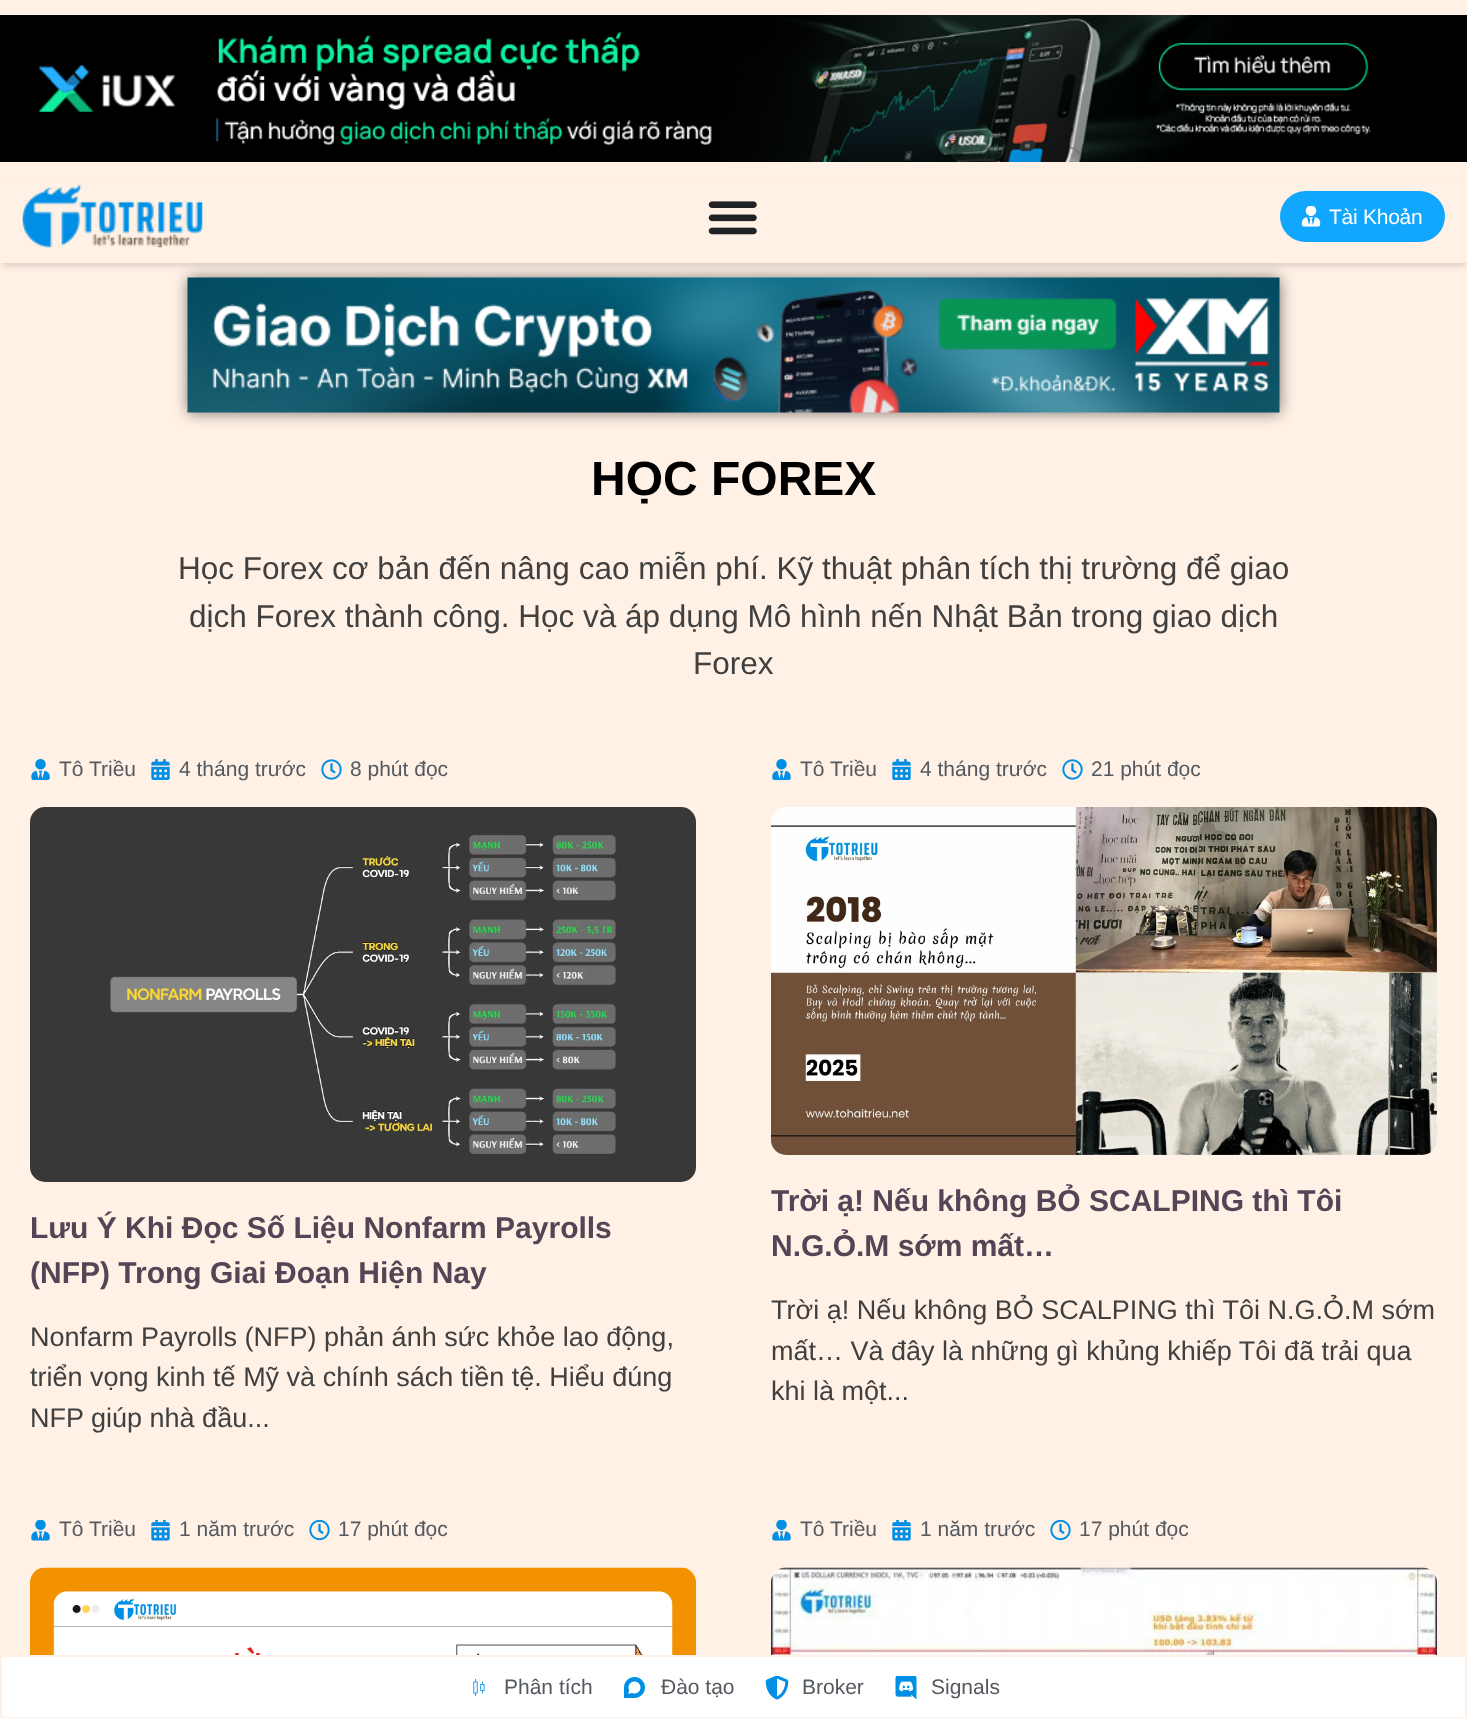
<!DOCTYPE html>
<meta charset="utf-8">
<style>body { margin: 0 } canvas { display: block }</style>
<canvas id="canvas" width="1467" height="1718"></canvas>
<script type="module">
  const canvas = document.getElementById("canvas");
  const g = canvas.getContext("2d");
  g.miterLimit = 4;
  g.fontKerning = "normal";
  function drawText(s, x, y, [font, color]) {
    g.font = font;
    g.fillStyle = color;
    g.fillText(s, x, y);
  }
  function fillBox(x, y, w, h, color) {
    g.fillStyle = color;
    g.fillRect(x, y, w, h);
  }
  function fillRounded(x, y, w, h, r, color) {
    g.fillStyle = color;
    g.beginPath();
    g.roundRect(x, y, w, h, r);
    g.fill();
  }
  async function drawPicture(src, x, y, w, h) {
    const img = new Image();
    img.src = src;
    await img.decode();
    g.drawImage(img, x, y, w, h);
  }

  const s1 = ["21px Liberation Sans", "#FFFFFF"];
  const s2 = ["bold 48px Liberation Sans", "#000000"];
  const s3 = ["31.5px Liberation Sans", "#404040"];
  const s4 = ["21px Liberation Sans", "#54595F"];
  const s5 = ["bold 30px Liberation Sans", "#554455"];
  const s6 = ["27px Liberation Sans", "#404040"];

  fillBox(0, 0, 1467, 1718, "#FFF1E5");
  await drawPicture("pic1.png", 0, 15, 1467, 147);
  g.fillStyle = "rgba(77, 72, 69, 0.2)";
  g.filter = "blur(3px)";
  g.beginPath();
  g.rect(2, 183, 1464, 83);
  g.fill();
  g.filter = "none";
  fillBox(0, 179, 1467, 84, "#FFF1E5");
  await drawPicture("pic2.png", 22, 184, 181, 64);
  await drawPicture("pic3.png", 708, 201, 49, 34);
  fillRounded(1280, 191, 165, 51, 25.5, "#12A7FF");
  await drawPicture("pic4.png", 1301, 206, 20, 21);
  g.letterSpacing = "-0.25px";
  drawText("Tài Khoản", 1329, 224, s1);
  g.fillStyle = "rgba(0, 0, 0, 0.5)";
  g.filter = "blur(7.5px)";
  g.beginPath();
  g.rect(188, 278, 1092, 135);
  g.fill();
  g.filter = "none";
  await drawPicture("pic5.png", 187, 277, 1093, 136);
  g.letterSpacing = "0px";
  drawText("HỌC FOREX", 591, 495, s2);
  drawText("Học Forex cơ bản đến nâng cao miễn phí. Kỹ thuật phân tích thị trường để giao", 178, 579, s3);
  drawText("dịch Forex thành công. Học và áp dụng Mô hình nến Nhật Bản trong giao dịch", 189, 627, s3);
  drawText("Forex", 693, 674, s3);
  await drawPicture("pic6.png", 31, 759, 19, 21);
  drawText("Tô Triều", 59, 776, s4);
  await drawPicture("pic7.png", 151, 759, 19, 21);
  drawText("4 tháng trước", 179, 776, s4);
  await drawPicture("pic8.png", 321, 759, 21, 21);
  drawText("8 phút đọc", 350, 776, s4);
  await drawPicture("pic9.png", 30, 807, 666, 375);
  drawText("Lưu Ý Khi Đọc Số Liệu Nonfarm Payrolls", 30, 1238, s5);
  drawText("(NFP) Trong Giai Đoạn Hiện Nay", 30, 1283, s5);
  drawText("Nonfarm Payrolls (NFP) phản ánh sức khỏe lao động,", 30, 1346, s6);
  drawText("triển vọng kinh tế Mỹ và chính sách tiền tệ. Hiểu đúng", 30, 1386, s6);
  drawText("NFP giúp nhà đầu...", 30, 1427, s6);
  await drawPicture("pic6.png", 772, 759, 19, 21);
  drawText("Tô Triều", 800, 776, s4);
  await drawPicture("pic7.png", 892, 759, 19, 21);
  drawText("4 tháng trước", 920, 776, s4);
  await drawPicture("pic8.png", 1062, 759, 21, 21);
  drawText("21 phút đọc", 1091, 776, s4);
  await drawPicture("pic10.png", 771, 807, 666, 348);
  drawText("Trời ạ! Nếu không BỎ SCALPING thì Tôi", 771, 1211, s5);
  drawText("N.G.Ỏ.M sớm mất…", 771, 1256, s5);
  drawText("Trời ạ! Nếu không BỎ SCALPING thì Tôi N.G.Ỏ.M sớm", 771, 1319, s6);
  drawText("mất… Và đây là những gì khủng khiếp Tôi đã trải qua", 771, 1360, s6);
  drawText("khi là một...", 771, 1400, s6);
  await drawPicture("pic11.png", 31, 1520, 19, 21);
  drawText("Tô Triều", 59, 1536, s4);
  await drawPicture("pic12.png", 151, 1520, 19, 21);
  drawText("1 năm trước", 179, 1536, s4);
  await drawPicture("pic13.png", 309, 1520, 21, 21);
  drawText("17 phút đọc", 338, 1536, s4);
  await drawPicture("pic14.png", 30, 1567, 666, 88);
  await drawPicture("pic11.png", 772, 1520, 19, 21);
  drawText("Tô Triều", 800, 1536, s4);
  await drawPicture("pic12.png", 892, 1520, 19, 21);
  drawText("1 năm trước", 920, 1536, s4);
  await drawPicture("pic13.png", 1050, 1520, 21, 21);
  drawText("17 phút đọc", 1079, 1536, s4);
  await drawPicture("pic15.png", 771, 1567, 666, 88);
  fillBox(2, 1657, 1463, 60, "#FFFFFF");
  await drawPicture("pic16.png", 473, 1678, 12, 19);
  drawText("Phân tích", 504, 1694, s4);
  await drawPicture("pic17.png", 624, 1677, 21, 21);
  drawText("Đào tạo", 661, 1694, s4);
  await drawPicture("pic18.png", 765, 1676, 24, 24);
  drawText("Broker", 802, 1694, s4);
  await drawPicture("pic19.png", 895, 1676, 22, 24);
  drawText("Signals", 931, 1694, s4);
</script>
